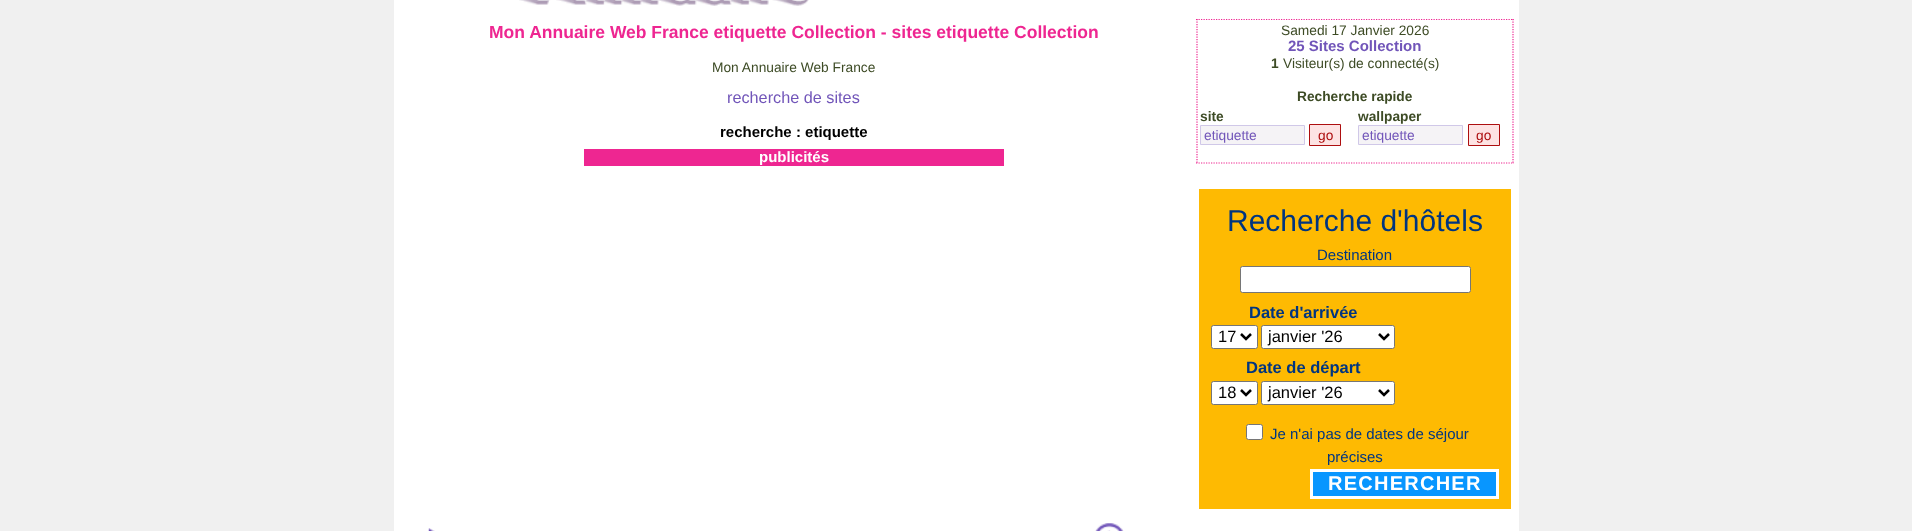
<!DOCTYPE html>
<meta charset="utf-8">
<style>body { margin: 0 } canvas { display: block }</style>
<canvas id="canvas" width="1912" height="531"></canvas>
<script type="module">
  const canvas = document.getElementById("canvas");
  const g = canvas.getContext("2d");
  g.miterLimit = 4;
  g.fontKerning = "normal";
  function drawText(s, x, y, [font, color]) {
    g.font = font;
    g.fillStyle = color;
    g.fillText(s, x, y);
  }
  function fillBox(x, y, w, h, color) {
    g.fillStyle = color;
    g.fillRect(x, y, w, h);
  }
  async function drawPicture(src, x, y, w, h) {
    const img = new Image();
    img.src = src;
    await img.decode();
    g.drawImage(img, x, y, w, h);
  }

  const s1 = ["bold 17.5px Liberation Sans", "#EE2691"];
  const s2 = ["13.75px Liberation Sans", "#3D4B25"];
  const s3 = ["16.25px Liberation Sans", "#7155B9"];
  const s4 = ["bold 15px Liberation Sans", "#000000"];
  const s5 = ["bold 15px Liberation Sans", "#FFFFFF"];
  const s6 = ["bold 15px Liberation Sans", "#7155B9"];
  const s7 = ["bold 13.75px Liberation Sans", "#3D4B25"];
  const s8 = ["13.75px Liberation Sans", "#7155B9"];
  const s9 = ["13.75px Liberation Sans", "#AD0E0F"];
  const s10 = ["30px Liberation Sans", "#003580"];
  const s11 = ["15px Liberation Sans", "#003580"];
  const s12 = ["bold 16.5px Liberation Sans", "#003580"];
  const s13 = ["16.5px Liberation Sans", "#000000"];
  const s14 = ["bold 20px Liberation Sans", "#FFFFFF"];

  fillBox(0, 0, 1912, 531, "#F0F0F0");
  fillBox(394, 0, 1125, 531, "#FFFFFF");
  await drawPicture("pic1.png", 519, 0, 290, 6);
  drawText("Mon Annuaire Web France etiquette Collection - sites etiquette Collection", 489, 38, s1);
  drawText("Mon Annuaire Web France", 712, 72, s2);
  drawText("recherche de sites", 727, 103, s3);
  drawText("recherche : etiquette", 720, 137, s4);
  fillBox(584, 149, 420, 17, "#EE2691");
  drawText("publicités", 759, 162, s5);
  await drawPicture("pic2.png", 428, 528, 7, 3);
  await drawPicture("pic3.png", 1095, 523, 29, 8);
  g.beginPath();
  g.moveTo(1196, 19.5);
  g.lineTo(1514, 19.5);
  g.strokeStyle = "#EE2691";
  g.lineWidth = 1.2;
  g.setLineDash([1.25, 1.25]);
  g.stroke();
  g.beginPath();
  g.moveTo(1513, 19);
  g.lineTo(1513, 164);
  g.stroke();
  g.beginPath();
  g.moveTo(1196, 163);
  g.lineTo(1514, 163);
  g.stroke();
  g.beginPath();
  g.moveTo(1197, 19);
  g.lineTo(1197, 164);
  g.stroke();
  drawText("Samedi 17 Janvier 2026", 1281, 35, s2);
  drawText("25 Sites Collection", 1288, 51, s6);
  drawText("1", 1271, 68, s7);
  drawText("Visiteur(s) de connecté(s)", 1283, 68, s2);
  drawText("Recherche rapide", 1297, 101, s7);
  drawText("site", 1200, 121, s7);
  drawText("wallpaper", 1358, 121, s7);
  g.fillStyle = "#F5F3F6";
  g.beginPath();
  g.rect(1200.5, 125.5, 104, 19);
  g.fill();
  g.strokeStyle = "#D0C8E8";
  g.lineWidth = 1;
  g.setLineDash([]);
  g.stroke();
  drawText("etiquette", 1204, 140, s8);
  g.fillStyle = "#FDE3E3";
  g.beginPath();
  g.rect(1309.5, 124.5, 31, 21);
  g.fill();
  g.strokeStyle = "#AD0E0F";
  g.stroke();
  drawText("go", 1318, 140, s9);
  g.fillStyle = "#F5F3F6";
  g.beginPath();
  g.rect(1358.5, 125.5, 104, 19);
  g.fill();
  g.strokeStyle = "#D0C8E8";
  g.stroke();
  drawText("etiquette", 1362, 140, s8);
  g.fillStyle = "#FDE3E3";
  g.beginPath();
  g.rect(1468.5, 124.5, 31, 21);
  g.fill();
  g.strokeStyle = "#AD0E0F";
  g.stroke();
  drawText("go", 1476, 140, s9);
  fillBox(1199, 189, 312, 320, "#FEBA02");
  drawText("Recherche d'hôtels", 1227, 231, s10);
  drawText("Destination", 1317, 260, s11);
  g.fillStyle = "#FFFFFF";
  g.beginPath();
  g.roundRect(1240.5, 266.5, 230, 26, 2);
  g.fill();
  g.strokeStyle = "#767676";
  g.stroke();
  drawText("Date d'arrivée", 1249, 318, s12);
  g.fillStyle = "#FFFFFF";
  g.beginPath();
  g.roundRect(1211.5, 325.5, 46, 23, 2);
  g.fill();
  g.stroke();
  g.beginPath();
  g.moveTo(1241, 334);
  g.lineTo(1246, 339);
  g.lineTo(1251, 334);
  g.strokeStyle = "#000000";
  g.lineWidth = 2.5;
  g.stroke();
  drawText("17", 1218, 342, s13);
  g.fillStyle = "#FFFFFF";
  g.beginPath();
  g.roundRect(1261.5, 325.5, 133, 23, 2);
  g.fill();
  g.strokeStyle = "#767676";
  g.lineWidth = 1;
  g.stroke();
  g.beginPath();
  g.moveTo(1379, 334);
  g.lineTo(1384, 339);
  g.lineTo(1389, 334);
  g.strokeStyle = "#000000";
  g.lineWidth = 2.5;
  g.stroke();
  drawText("janvier '26", 1268, 342, s13);
  drawText("Date de départ", 1246, 373, s12);
  g.fillStyle = "#FFFFFF";
  g.beginPath();
  g.roundRect(1211.5, 381.5, 46, 23, 2);
  g.fill();
  g.strokeStyle = "#767676";
  g.lineWidth = 1;
  g.stroke();
  g.beginPath();
  g.moveTo(1241, 390);
  g.lineTo(1246, 395);
  g.lineTo(1251, 390);
  g.strokeStyle = "#000000";
  g.lineWidth = 2.5;
  g.stroke();
  drawText("18", 1218, 398, s13);
  g.fillStyle = "#FFFFFF";
  g.beginPath();
  g.roundRect(1261.5, 381.5, 133, 23, 2);
  g.fill();
  g.strokeStyle = "#767676";
  g.lineWidth = 1;
  g.stroke();
  g.beginPath();
  g.moveTo(1379, 390);
  g.lineTo(1384, 395);
  g.lineTo(1389, 390);
  g.strokeStyle = "#000000";
  g.lineWidth = 2.5;
  g.stroke();
  drawText("janvier '26", 1268, 398, s13);
  g.fillStyle = "#FFFFFF";
  g.beginPath();
  g.roundRect(1246.5, 424.5, 16, 15, 2);
  g.fill();
  g.strokeStyle = "#767676";
  g.lineWidth = 1;
  g.stroke();
  drawText("Je n'ai pas de dates de séjour", 1270, 439, s11);
  drawText("précises", 1327, 462, s11);
  g.fillStyle = "#0896FF";
  g.beginPath();
  g.rect(1311.5, 470.5, 186, 27);
  g.fill();
  g.strokeStyle = "#FFFFFF";
  g.lineWidth = 3;
  g.stroke();
  g.letterSpacing = "1.25px";
  drawText("RECHERCHER", 1328, 490, s14);
</script>
